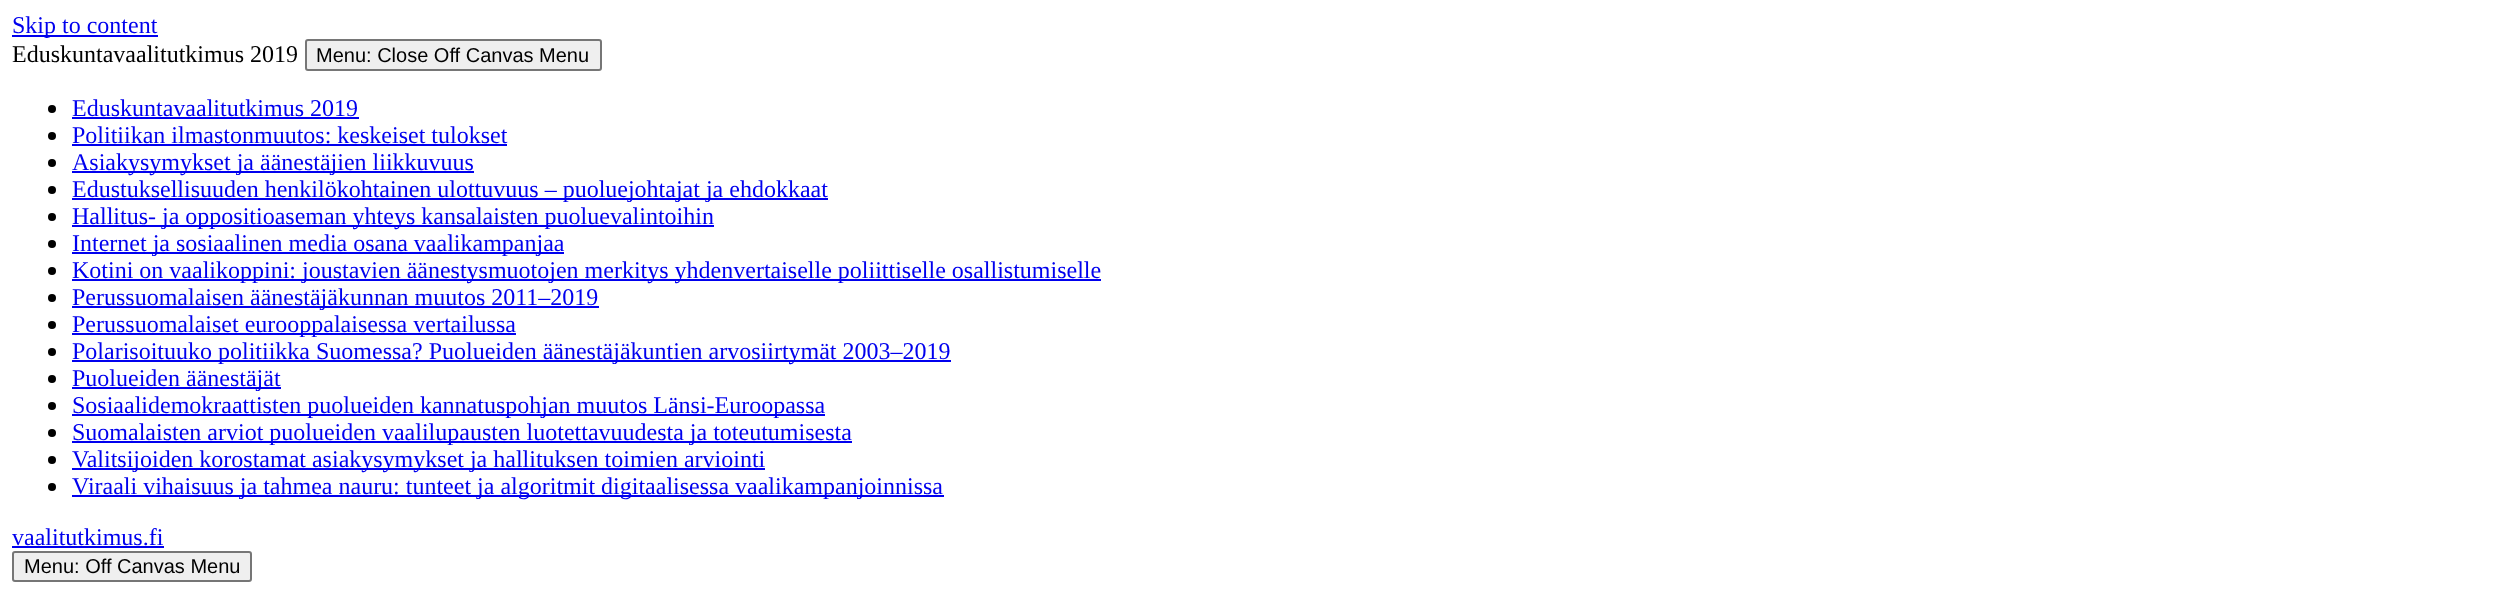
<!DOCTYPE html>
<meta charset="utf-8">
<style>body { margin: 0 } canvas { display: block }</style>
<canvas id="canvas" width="2508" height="589"></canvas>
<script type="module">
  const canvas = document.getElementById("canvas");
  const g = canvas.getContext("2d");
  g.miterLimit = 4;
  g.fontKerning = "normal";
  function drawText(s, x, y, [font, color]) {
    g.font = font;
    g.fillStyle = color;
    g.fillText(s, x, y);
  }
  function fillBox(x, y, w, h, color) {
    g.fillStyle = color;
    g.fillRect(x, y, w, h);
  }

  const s1 = ["24px Liberation Serif", "#0000EE"];
  const s2 = ["24px Liberation Serif", "#000000"];
  const s3 = ["20px Liberation Sans", "#000000"];

  fillBox(0, 0, 2508, 589, "#FFFFFF");
  fillBox(12, 35, 146, 2, "#0000EE");
  drawText("Skip to content", 12, 33, s1);
  drawText("Eduskuntavaalitutkimus 2019", 12, 62, s2);
  g.fillStyle = "#EFEFEF";
  g.beginPath();
  g.roundRect(306, 40, 295, 30, 2);
  g.fill();
  g.strokeStyle = "#767676";
  g.lineWidth = 2;
  g.stroke();
  drawText("Menu: Close Off Canvas Menu", 316, 62, s3);
  g.beginPath();
  g.arc(52, 109, 4, 0, Math.PI * 2);
  g.fill();
  drawText("Eduskuntavaalitutkimus 2019", 72, 116, s1);
  fillBox(72, 117, 287, 2, "#0000EE");
  g.fillStyle = "#000000";
  g.beginPath();
  g.arc(52, 136, 4, 0, Math.PI * 2);
  g.fill();
  drawText("Politiikan ilmastonmuutos: keskeiset tulokset", 72, 143, s1);
  fillBox(72, 144, 435, 2, "#0000EE");
  g.fillStyle = "#000000";
  g.beginPath();
  g.arc(52, 163, 4, 0, Math.PI * 2);
  g.fill();
  fillBox(72, 171, 402, 2, "#0000EE");
  drawText("Asiakysymykset ja äänestäjien liikkuvuus", 72, 170, s1);
  g.fillStyle = "#000000";
  g.beginPath();
  g.arc(52, 190, 4, 0, Math.PI * 2);
  g.fill();
  fillBox(72, 198, 756, 2, "#0000EE");
  drawText("Edustuksellisuuden henkilökohtainen ulottuvuus – puoluejohtajat ja ehdokkaat", 72, 197, s1);
  g.fillStyle = "#000000";
  g.beginPath();
  g.arc(52, 217, 4, 0, Math.PI * 2);
  g.fill();
  fillBox(72, 225, 642, 2, "#0000EE");
  drawText("Hallitus- ja oppositioaseman yhteys kansalaisten puoluevalintoihin", 72, 224, s1);
  g.fillStyle = "#000000";
  g.beginPath();
  g.arc(52, 244, 4, 0, Math.PI * 2);
  g.fill();
  fillBox(72, 252, 492, 2, "#0000EE");
  drawText("Internet ja sosiaalinen media osana vaalikampanjaa", 72, 251, s1);
  g.fillStyle = "#000000";
  g.beginPath();
  g.arc(52, 271, 4, 0, Math.PI * 2);
  g.fill();
  fillBox(72, 279, 1029, 2, "#0000EE");
  drawText("Kotini on vaalikoppini: joustavien äänestysmuotojen merkitys yhdenvertaiselle poliittiselle osallistumiselle", 72, 278, s1);
  g.fillStyle = "#000000";
  g.beginPath();
  g.arc(52, 298, 4, 0, Math.PI * 2);
  g.fill();
  fillBox(72, 306, 527, 2, "#0000EE");
  drawText("Perussuomalaisen äänestäjäkunnan muutos 2011–2019", 72, 305, s1);
  g.fillStyle = "#000000";
  g.beginPath();
  g.arc(52, 325, 4, 0, Math.PI * 2);
  g.fill();
  fillBox(72, 333, 444, 2, "#0000EE");
  drawText("Perussuomalaiset eurooppalaisessa vertailussa", 72, 332, s1);
  g.fillStyle = "#000000";
  g.beginPath();
  g.arc(52, 352, 4, 0, Math.PI * 2);
  g.fill();
  fillBox(72, 360, 879, 2, "#0000EE");
  drawText("Polarisoituuko politiikka Suomessa? Puolueiden äänestäjäkuntien arvosiirtymät 2003–2019", 72, 359, s1);
  g.fillStyle = "#000000";
  g.beginPath();
  g.arc(52, 379, 4, 0, Math.PI * 2);
  g.fill();
  fillBox(72, 387, 209, 2, "#0000EE");
  drawText("Puolueiden äänestäjät", 72, 386, s1);
  g.fillStyle = "#000000";
  g.beginPath();
  g.arc(52, 406, 4, 0, Math.PI * 2);
  g.fill();
  fillBox(72, 414, 753, 2, "#0000EE");
  drawText("Sosiaalidemokraattisten puolueiden kannatuspohjan muutos Länsi-Euroopassa", 72, 413, s1);
  g.fillStyle = "#000000";
  g.beginPath();
  g.arc(52, 433, 4, 0, Math.PI * 2);
  g.fill();
  fillBox(72, 441, 780, 2, "#0000EE");
  drawText("Suomalaisten arviot puolueiden vaalilupausten luotettavuudesta ja toteutumisesta", 72, 440, s1);
  g.fillStyle = "#000000";
  g.beginPath();
  g.arc(52, 460, 4, 0, Math.PI * 2);
  g.fill();
  fillBox(72, 468, 693, 2, "#0000EE");
  drawText("Valitsijoiden korostamat asiakysymykset ja hallituksen toimien arviointi", 72, 467, s1);
  g.fillStyle = "#000000";
  g.beginPath();
  g.arc(52, 487, 4, 0, Math.PI * 2);
  g.fill();
  fillBox(72, 495, 872, 2, "#0000EE");
  drawText("Viraali vihaisuus ja tahmea nauru: tunteet ja algoritmit digitaalisessa vaalikampanjoinnissa", 72, 494, s1);
  drawText("vaalitutkimus.fi", 12, 545, s1);
  fillBox(12, 546, 152, 2, "#0000EE");
  g.fillStyle = "#EFEFEF";
  g.beginPath();
  g.roundRect(13, 552, 238, 29, 2);
  g.fill();
  g.stroke();
  drawText("Menu: Off Canvas Menu", 24, 573, s3);
</script>
